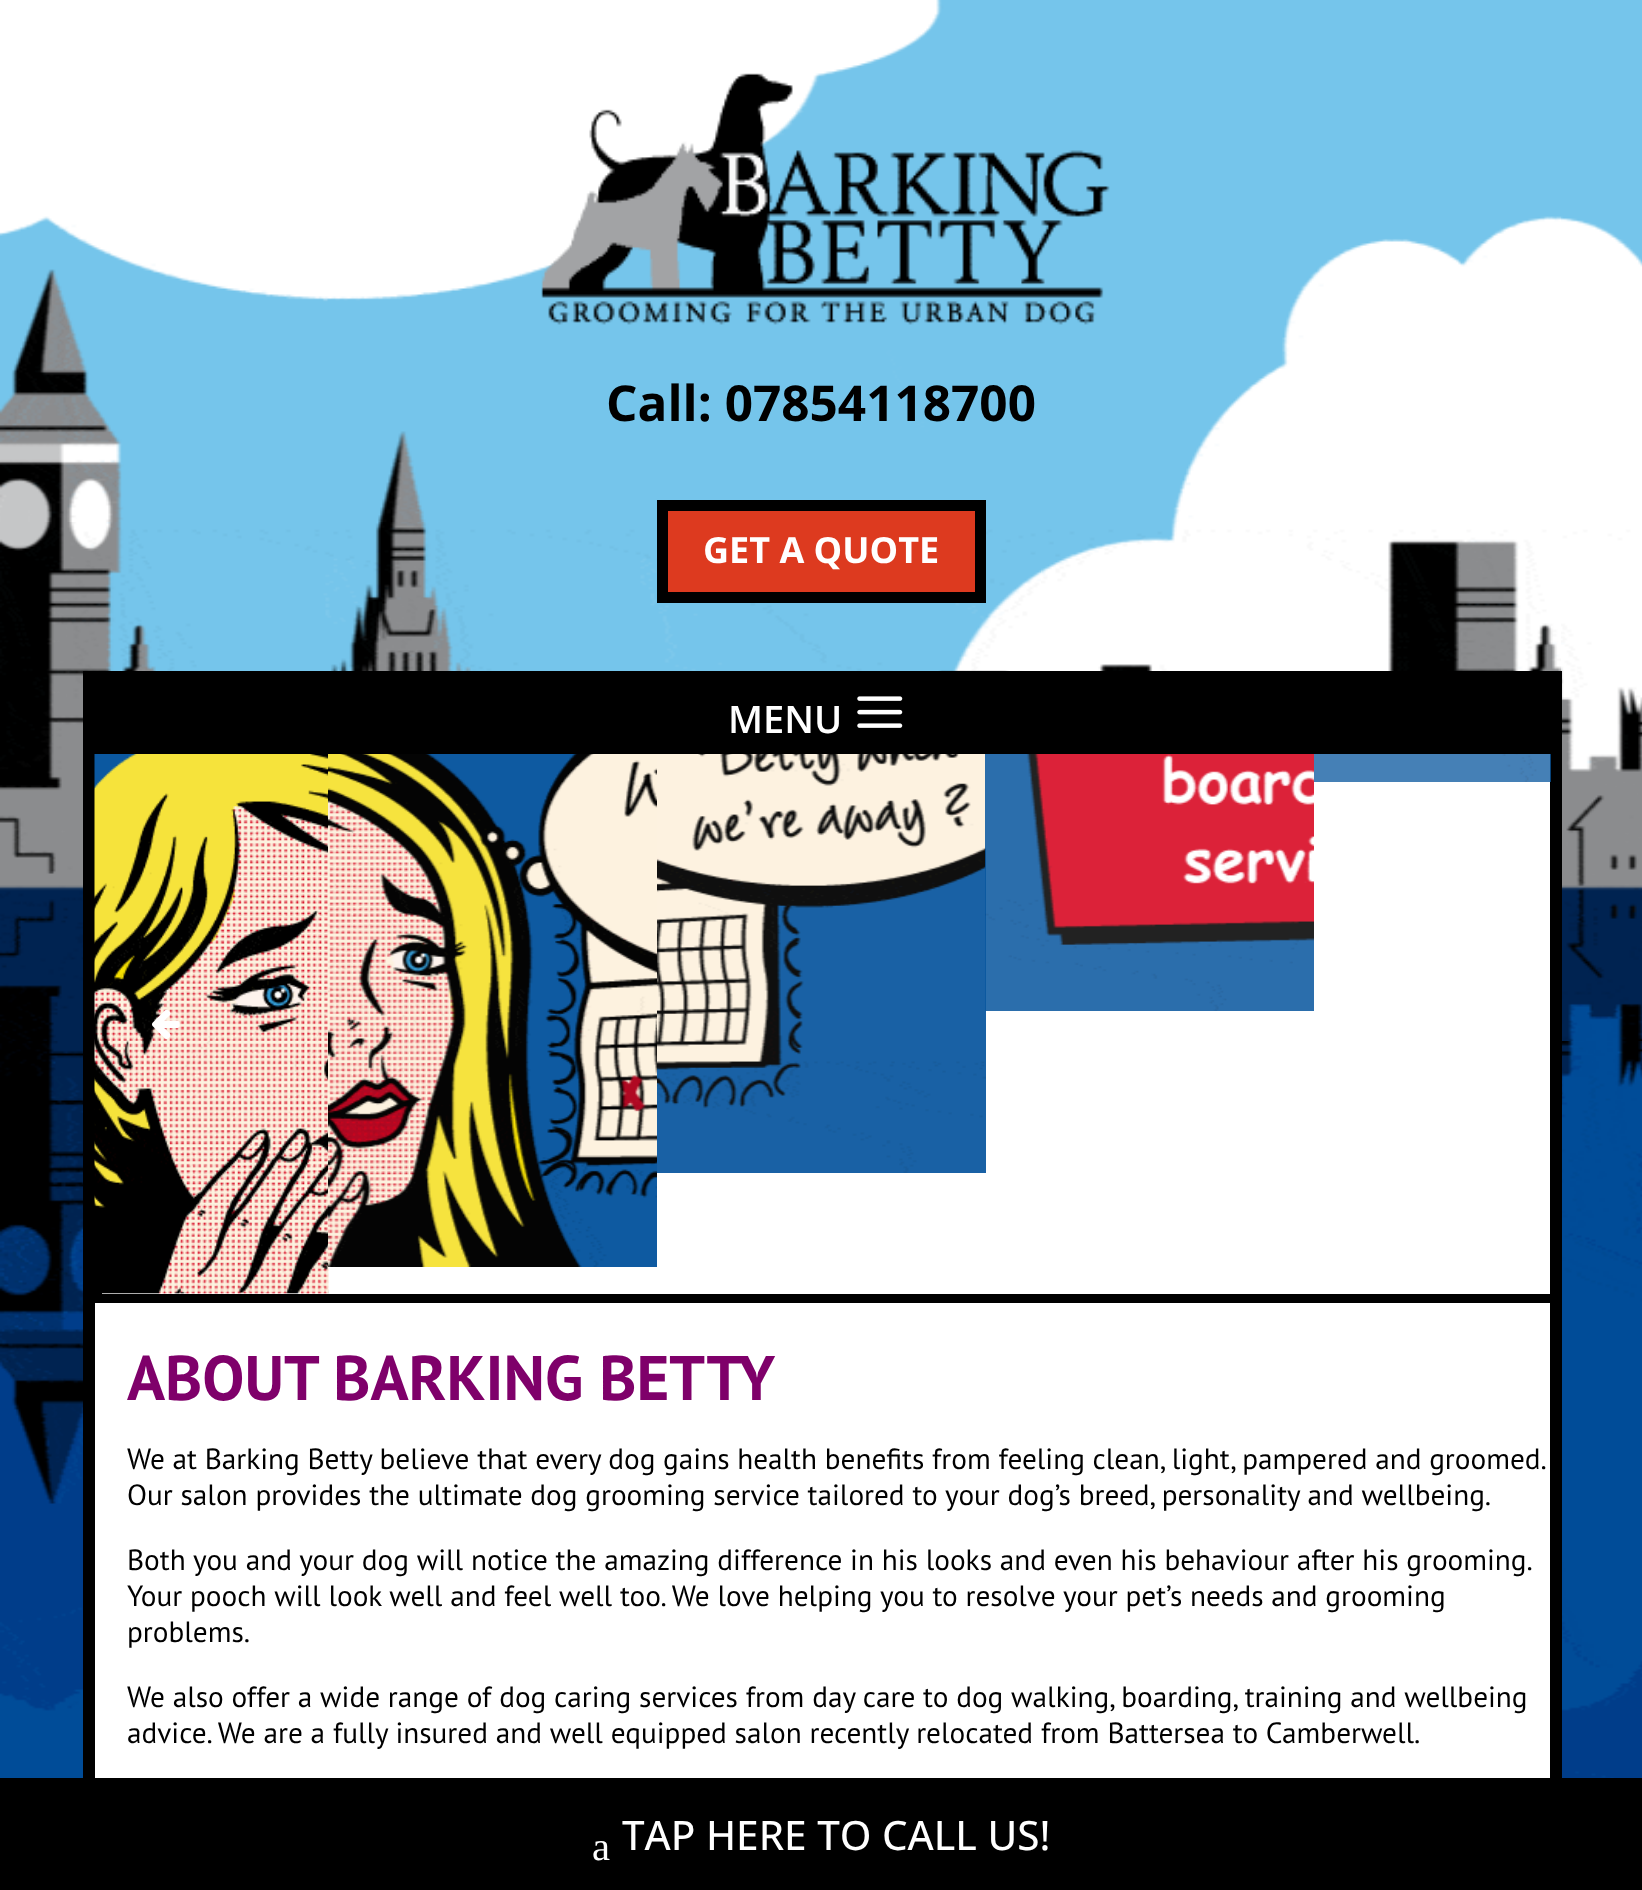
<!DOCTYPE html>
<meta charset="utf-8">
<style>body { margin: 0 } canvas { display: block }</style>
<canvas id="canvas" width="1642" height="1890"></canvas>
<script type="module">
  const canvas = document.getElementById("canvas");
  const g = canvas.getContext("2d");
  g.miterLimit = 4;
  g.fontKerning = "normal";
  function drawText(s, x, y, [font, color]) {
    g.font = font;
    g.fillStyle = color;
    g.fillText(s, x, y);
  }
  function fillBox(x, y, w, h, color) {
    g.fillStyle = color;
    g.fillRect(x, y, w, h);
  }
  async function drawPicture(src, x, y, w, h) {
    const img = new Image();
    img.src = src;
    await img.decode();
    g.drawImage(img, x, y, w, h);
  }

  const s1 = ["bold 49.5px Open Sans", "#000000"];
  const s2 = ["bold 36px Open Sans", "#FFFFFF"];
  const s3 = ["600 38px Open Sans", "#FFFFFF"];
  const s4 = ["bold 63px PT Sans", "#7F006A"];
  const s5 = ["29.25px PT Sans", "#000000"];
  const s6 = ["40.5px Liberation Serif", "#FFFFFF"];
  const s7 = ["500 40.5px Open Sans", "#FFFFFF"];

  fillBox(0, 0, 1642, 1890, "#FFFFFF");
  await drawPicture("pic1.png", 0, 0, 1642, 1778);
  await drawPicture("pic2.png", 541, 73, 569, 252);
  drawText("Call: 07854118700", 606, 421, s1);
  g.fillStyle = "#DD3A1F";
  g.beginPath();
  g.rect(662.5, 505.5, 318, 92);
  g.fill();
  g.strokeStyle = "#000000";
  g.lineWidth = 11;
  g.stroke();
  drawText("GET A QUOTE", 703, 563, s2);
  fillBox(83, 671, 1479, 83, "#000000");
  drawText("MENU", 728, 733, s3);
  await drawPicture("pic3.png", 857, 696, 46, 32);
  fillBox(95, 754, 1455, 1024, "#FFFFFF");
  fillBox(1550, 754, 12, 1024, "#000000");
  fillBox(83, 754, 12, 1024, "#000000");
  fillBox(95, 1293, 7, 1, "#000000");
  await drawPicture("pic4.png", 94, 754, 235, 540);
  await drawPicture("pic5.png", 328, 754, 329, 513);
  await drawPicture("pic6.png", 657, 754, 329, 419);
  await drawPicture("pic7.png", 985, 754, 329, 257);
  await drawPicture("pic8.png", 1314, 754, 237, 28);
  await drawPicture("pic9.png", 152, 1009, 28, 30);
  fillBox(95, 1294, 1455, 9, "#000000");
  drawText("ABOUT BARKING BETTY", 127, 1400, s4);
  g.wordSpacing = "-0.1px";
  drawText("We at Barking Betty believe that every dog gains health benefits from feeling clean, light, pampered and groomed.", 127, 1469, s5);
  g.wordSpacing = "0px";
  drawText("Our salon provides the ultimate dog grooming service tailored to your dog’s breed, personality and wellbeing.", 127, 1505, s5);
  drawText("Both you and your dog will notice the amazing difference in his looks and even his behaviour after his grooming.", 127, 1570, s5);
  drawText("Your pooch will look well and feel well too. We love helping you to resolve your pet’s needs and grooming", 127, 1606, s5);
  drawText("problems.", 127, 1642, s5);
  drawText("We also offer a wide range of dog caring services from day care to dog walking, boarding, training and wellbeing", 127, 1707, s5);
  drawText("advice. We are a fully insured and well equipped salon recently relocated from Battersea to Camberwell.", 127, 1743, s5);
  fillBox(0, 1778, 1642, 112, "#000000");
  drawText("a", 592, 1860, s6);
  drawText("TAP HERE TO CALL US!", 622, 1850, s7);
</script>
